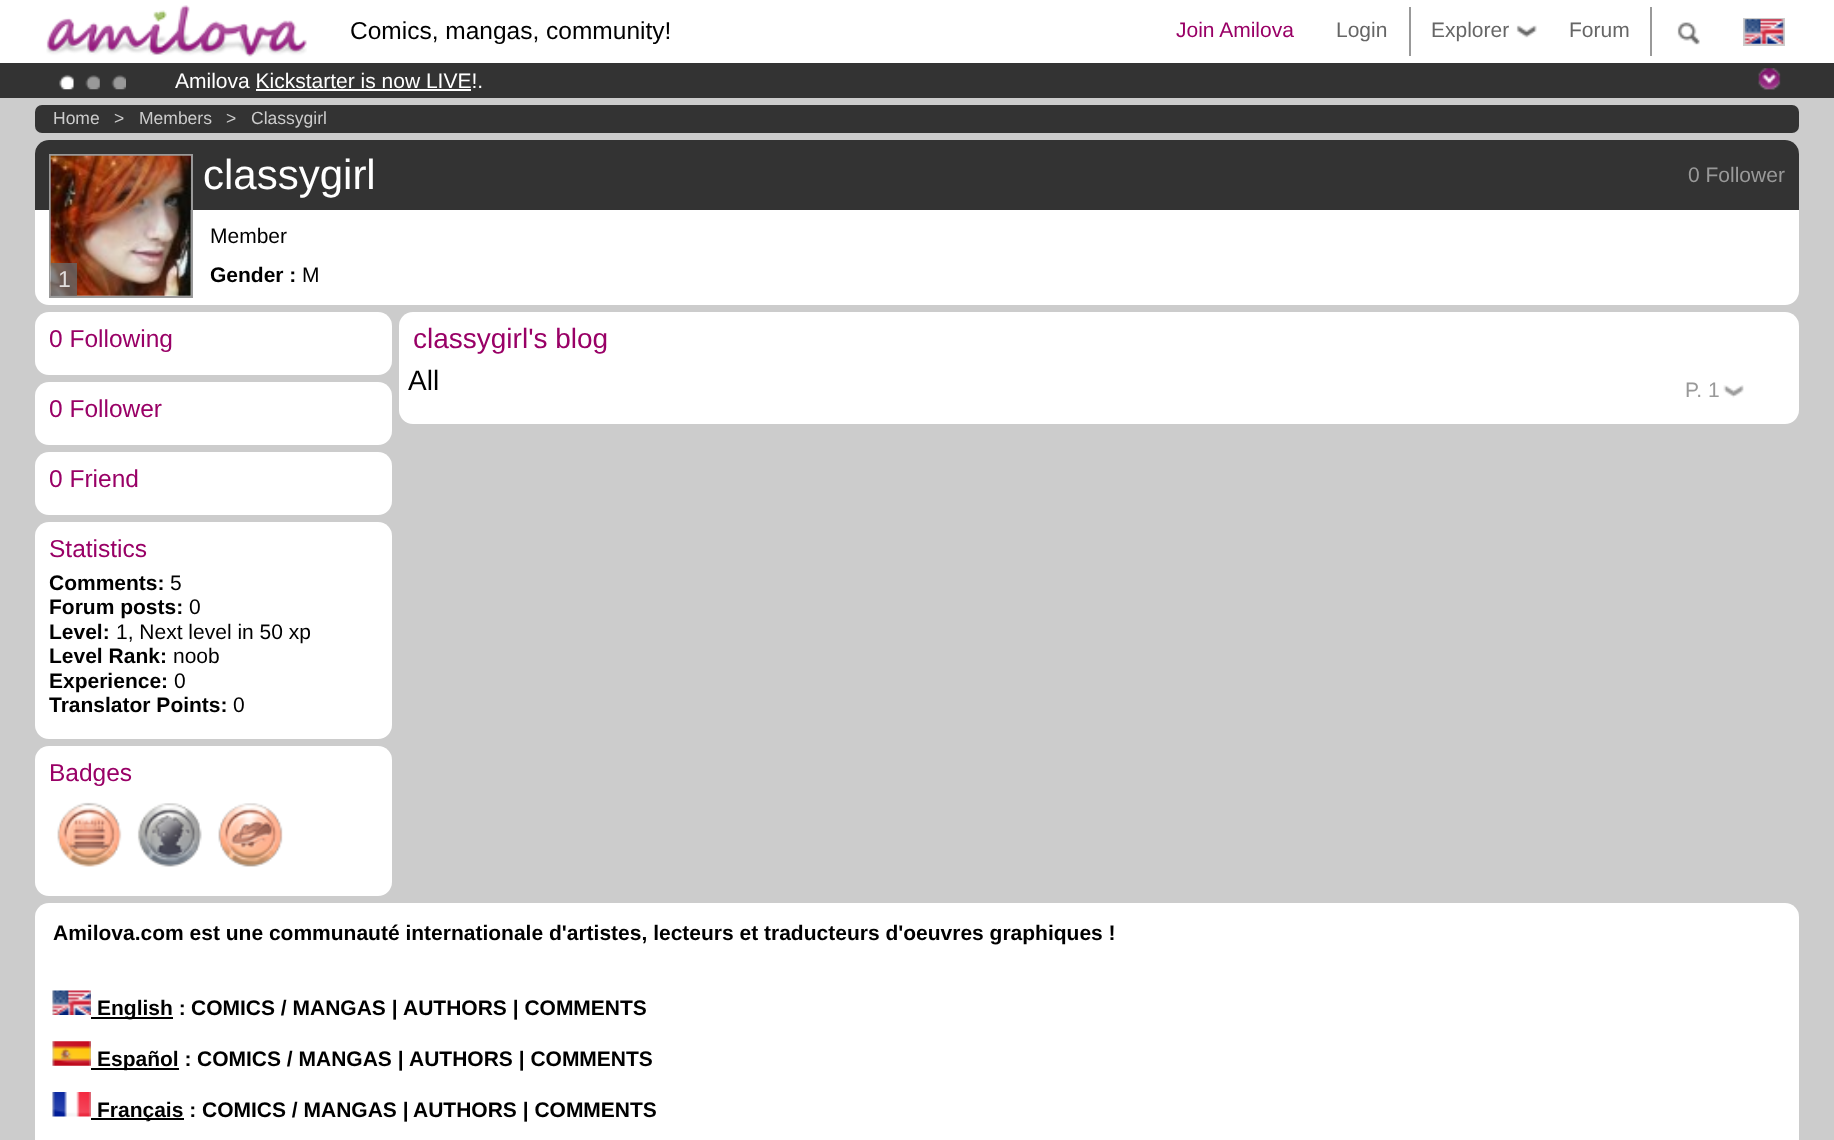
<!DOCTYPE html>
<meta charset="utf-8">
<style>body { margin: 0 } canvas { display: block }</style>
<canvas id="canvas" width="1834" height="1140"></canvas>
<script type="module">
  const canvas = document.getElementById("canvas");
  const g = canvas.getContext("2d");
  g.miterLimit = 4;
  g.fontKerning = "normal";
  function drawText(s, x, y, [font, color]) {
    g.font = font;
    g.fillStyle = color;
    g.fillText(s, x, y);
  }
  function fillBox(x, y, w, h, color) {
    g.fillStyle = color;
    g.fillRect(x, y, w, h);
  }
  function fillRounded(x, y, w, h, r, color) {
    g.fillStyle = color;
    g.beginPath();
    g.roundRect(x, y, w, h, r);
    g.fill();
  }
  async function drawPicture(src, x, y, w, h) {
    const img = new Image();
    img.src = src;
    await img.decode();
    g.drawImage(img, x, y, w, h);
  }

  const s1 = ["24.5px Liberation Sans", "#000000"];
  const s2 = ["21px Liberation Sans", "#990066"];
  const s3 = ["21px Liberation Sans", "#666666"];
  const s4 = ["21px Liberation Sans", "#FFFFFF"];
  const s5 = ["17.5px Liberation Sans", "#CCCCCC"];
  const s6 = ["42px Liberation Sans", "#FFFFFF"];
  const s7 = ["21px Liberation Sans", "#999999"];
  const s8 = ["23px Liberation Sans", "#E2DEDD"];
  const s9 = ["21px Liberation Sans", "#000000"];
  const s10 = ["bold 21px Liberation Sans", "#000000"];
  const s11 = ["24.5px Liberation Sans", "#990066"];
  const s12 = ["28px Liberation Sans", "#990066"];
  const s13 = ["28px Liberation Sans", "#000000"];

  fillBox(0, 0, 1834, 1140, "#CCCCCC");
  fillBox(0, 0, 1834, 63, "#FFFFFF");
  await drawPicture("pic1.png", 46, 5, 261, 52);
  drawText("Comics, mangas, community!", 350, 39, s1);
  drawText("Join Amilova", 1176, 37, s2);
  drawText("Login", 1336, 37, s3);
  fillBox(1409, 7, 2, 49, "#999999");
  drawText("Explorer", 1431, 37, s3);
  await drawPicture("pic2.png", 1516, 25, 21, 13);
  drawText("Forum", 1569, 37, s3);
  fillBox(1650, 7, 2, 49, "#999999");
  await drawPicture("pic3.png", 1677, 22, 23, 23);
  g.strokeStyle = "#CCCCCC";
  g.lineWidth = 2;
  g.strokeRect(1744, 19, 40, 26);
  await drawPicture("pic4.png", 1744, 19, 40, 25);
  fillBox(0, 63, 1834, 35, "#333333");
  await drawPicture("pic5.png", 59, 74, 15, 16);
  await drawPicture("pic6.png", 85, 75, 15, 15);
  await drawPicture("pic7.png", 111, 75, 15, 15);
  drawText("Amilova Kickstarter is now LIVE!.", 175, 88, s4);
  fillBox(256, 89, 215, 2, "#FFFFFF");
  await drawPicture("pic8.png", 1758, 68, 23, 22);
  fillRounded(35, 105, 1764, 28, 7, "#333333");
  drawText("Home", 53, 124, s5);
  drawText(">", 114, 124, s5);
  drawText("Members", 139, 124, s5);
  drawText(">", 226, 124, s5);
  drawText("Classygirl", 251, 124, s5);
  fillRounded(35, 140, 1764, 165, 14, "#FFFFFF");
  g.fillStyle = "#333333";
  g.beginPath();
  g.roundRect(35, 140, 1764, 70, [14, 14, 0, 0]);
  g.fill();
  drawText("classygirl", 203, 189, s6);
  drawText("0 Follower", 1688, 182, s7);
  g.strokeStyle = "#999999";
  g.strokeRect(50, 155, 142, 142);
  await drawPicture("pic9.png", 50, 155, 141, 141);
  fillBox(51, 263, 26, 33, "rgba(102, 102, 102, 0.8)");
  drawText("1", 58, 287, s8);
  drawText("Member", 210, 243, s9);
  drawText("Gender :", 210, 282, s10);
  drawText("M", 302, 282, s9);
  fillRounded(35, 312, 357, 63, 14, "#FFFFFF");
  drawText("0 Following", 49, 347, s11);
  fillRounded(35, 382, 357, 63, 14, "#FFFFFF");
  drawText("0 Follower", 49, 417, s11);
  fillRounded(35, 452, 357, 63, 14, "#FFFFFF");
  drawText("0 Friend", 49, 487, s11);
  fillRounded(35, 522, 357, 217, 14, "#FFFFFF");
  drawText("Statistics", 49, 557, s11);
  drawText("Comments:", 49, 590, s10);
  drawText("5", 170, 590, s9);
  drawText("Forum posts:", 49, 614, s10);
  drawText("0", 189, 614, s9);
  drawText("Level:", 49, 639, s10);
  drawText("1, Next level in 50 xp", 116, 639, s9);
  drawText("Level Rank:", 49, 663, s10);
  drawText("noob", 173, 663, s9);
  drawText("Experience:", 49, 688, s10);
  drawText("0", 174, 688, s9);
  drawText("Translator Points:", 49, 712, s10);
  drawText("0", 233, 712, s9);
  fillRounded(35, 746, 357, 150, 14, "#FFFFFF");
  drawText("Badges", 49, 781, s11);
  await drawPicture("pic10.png", 57, 802, 65, 65);
  await drawPicture("pic11.png", 137, 803, 65, 64);
  await drawPicture("pic12.png", 218, 803, 65, 64);
  fillRounded(399, 312, 1400, 112, 14, "#FFFFFF");
  drawText("classygirl's blog", 413, 348, s12);
  drawText("All", 408, 390, s13);
  drawText("P. 1", 1685, 397, s7);
  await drawPicture("pic13.png", 1723, 385, 21, 13);
  fillRounded(35, 903, 1764, 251, 14, "#FFFFFF");
  drawText("Amilova.com est une communauté internationale d'artistes, lecteurs et traducteurs d'oeuvres graphiques !", 53, 940, s10);
  await drawPicture("pic14.png", 52, 990, 39, 25);
  fillBox(91, 1017, 82, 2, "#000000");
  drawText("English :", 97, 1015, s10);
  drawText("COMICS / MANGAS |", 191, 1015, s10);
  drawText("AUTHORS | COMMENTS", 403, 1015, s10);
  await drawPicture("pic15.png", 52, 1041, 39, 25);
  fillBox(91, 1068, 88, 2, "#000000");
  drawText("Español :", 97, 1066, s10);
  drawText("COMICS / MANGAS |", 197, 1066, s10);
  drawText("AUTHORS | COMMENTS", 409, 1066, s10);
  await drawPicture("pic16.png", 52, 1092, 39, 25);
  fillBox(91, 1118, 93, 2, "#000000");
  drawText("Français :", 97, 1117, s10);
  drawText("COMICS / MANGAS |", 202, 1117, s10);
  drawText("AUTHORS | COMMENTS", 413, 1117, s10);
</script>
